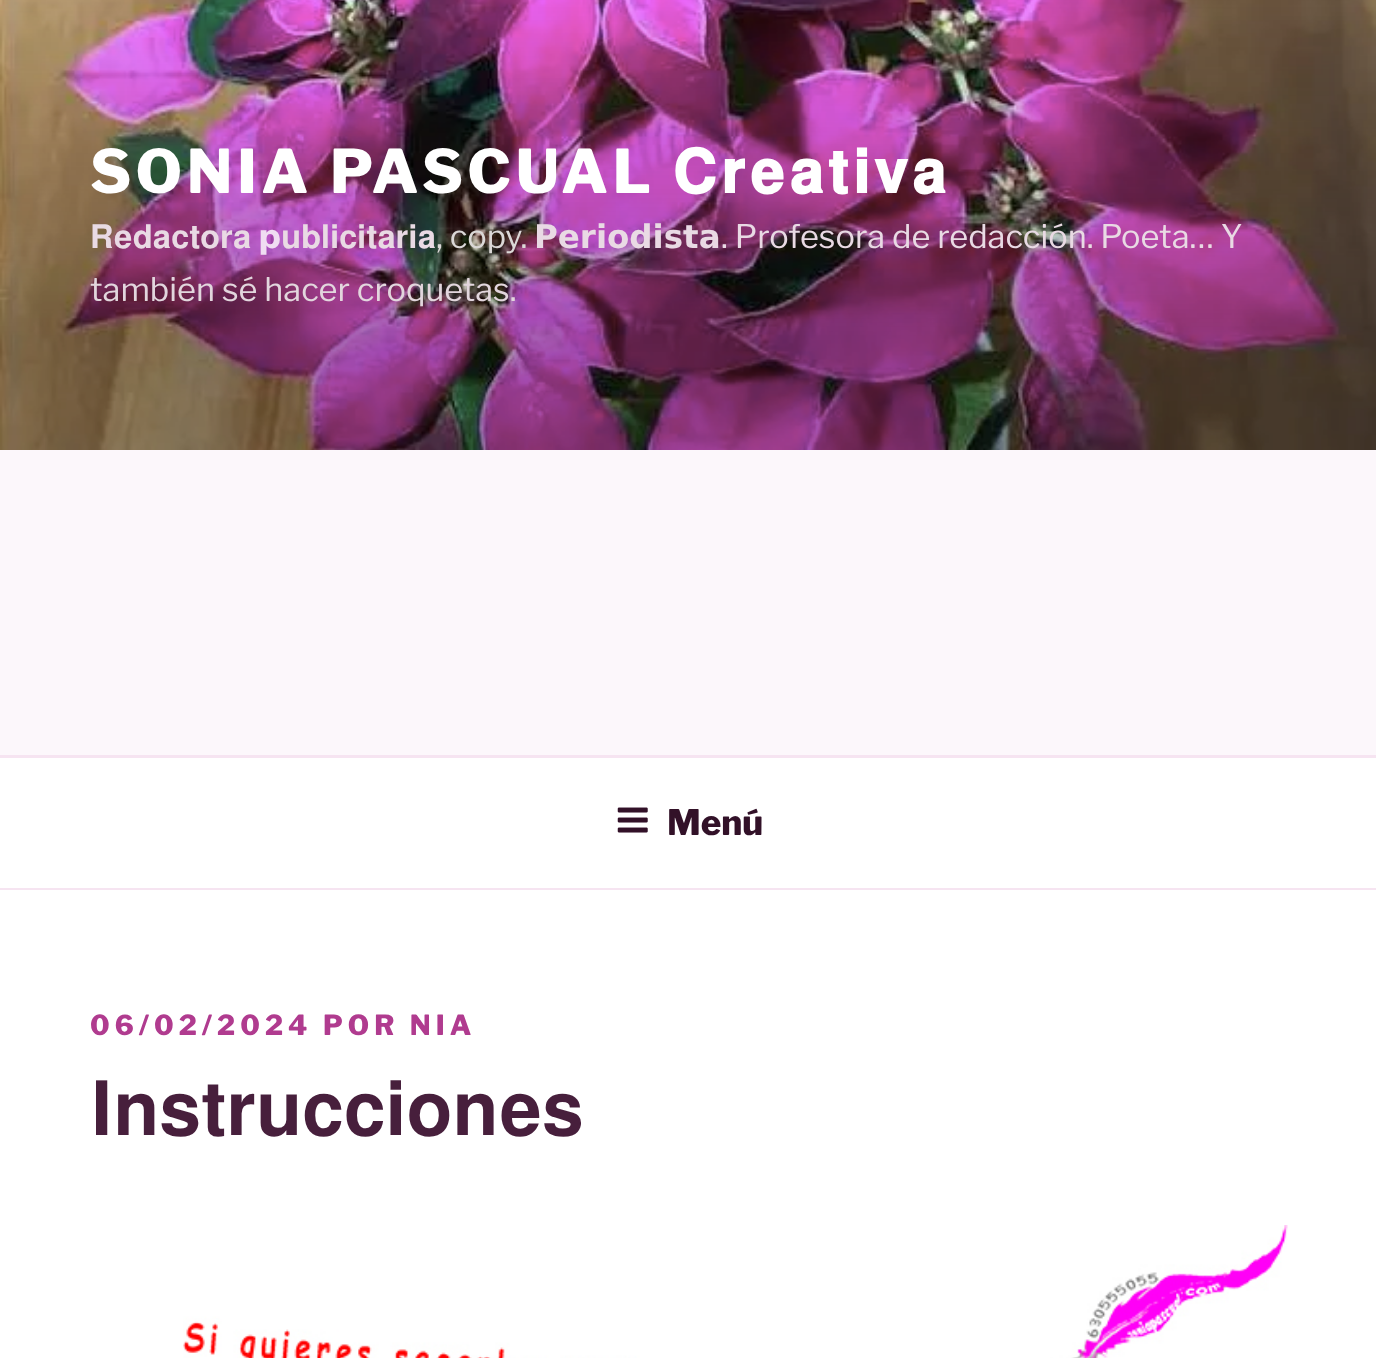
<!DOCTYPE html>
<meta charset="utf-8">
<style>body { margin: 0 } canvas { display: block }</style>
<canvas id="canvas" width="1376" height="1358"></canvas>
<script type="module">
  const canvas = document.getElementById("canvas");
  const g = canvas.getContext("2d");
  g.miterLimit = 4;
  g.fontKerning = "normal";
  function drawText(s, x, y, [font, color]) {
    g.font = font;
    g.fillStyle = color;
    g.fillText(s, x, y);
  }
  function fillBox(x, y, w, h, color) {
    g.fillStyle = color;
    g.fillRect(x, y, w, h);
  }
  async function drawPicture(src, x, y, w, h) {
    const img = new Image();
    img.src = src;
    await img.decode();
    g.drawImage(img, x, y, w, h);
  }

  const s1 = ["100 60px Libre Franklin", "#FFFFFF"];
  const s2 = ["bold 60px FreeSans", "#FFFFFF"];
  const s3 = ["32.5px FreeSans", "#E9DAE4"];
  const s4 = ["bold 32.5px DejaVu Sans", "#F0DDF2"];
  const s5 = ["100 32.5px 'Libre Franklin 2'", "#DBD8D7"];
  const s6 = ["bold 32.5px DejaVu Sans", "#E9DAE4"];
  const s7 = ["100 32.5px 'Libre Franklin 2'", "#E9DAE4"];
  const s8 = ["100 32.5px 'Libre Franklin 2'", "#E2D6DD"];
  const s9 = ["100 35px Libre Franklin", "#321128"];
  const s10 = ["100 27.5px Libre Franklin", "#B03B8F"];
  const s11 = ["75px FreeSans", "#471F3C"];

  fillBox(0, 0, 1376, 1358, "#FCF7FB");
  await drawPicture("pic1.png", 0, 0, 1376, 450);
  g.letterSpacing = "4.75px";
  drawText("SONIA PASCUAL", 90, 193, s1);
  drawText("𝐂𝐫𝐞𝐚𝐭𝐢𝐯𝐚", 673, 193, s2);
  g.letterSpacing = "0px";
  drawText("𝐑𝐞𝐝𝐚𝐜𝐭𝐨𝐫𝐚", 90, 248, s3);
  drawText("𝗽", 258, 248, s4);
  drawText("𝐮𝐛𝐥𝐢𝐜𝐢𝐭𝐚𝐫𝐢𝐚", 281, 248, s3);
  drawText(", copy.", 436, 248, s5);
  drawText("𝗣𝗲𝗿𝗶𝗼𝗱𝗶𝘀𝘁𝗮", 534, 248, s6);
  drawText(". Profesora de redacción. Poeta… Y", 721, 248, s7);
  drawText("también sé hacer croquetas.", 90, 301, s8);
  fillBox(0, 758, 1376, 130, "#FFFFFF");
  fillBox(0, 755, 1376, 3, "#F6E4F1");
  fillBox(0, 888, 1376, 2, "#F6E4F1");
  await drawPicture("pic2.png", 617, 807, 31, 26);
  drawText("Menú", 667, 835, s9);
  fillBox(0, 890, 1376, 468, "#FFFFFF");
  g.letterSpacing = "5px";
  drawText("06/02/2024 POR NIA", 90, 1035, s10);
  g.letterSpacing = "0px";
  drawText("𝐈𝐧𝐬𝐭𝐫𝐮𝐜𝐜𝐢𝐨𝐧𝐞𝐬", 90, 1135, s11);
  await drawPicture("pic3.png", 183, 1225, 1105, 133);
</script>
